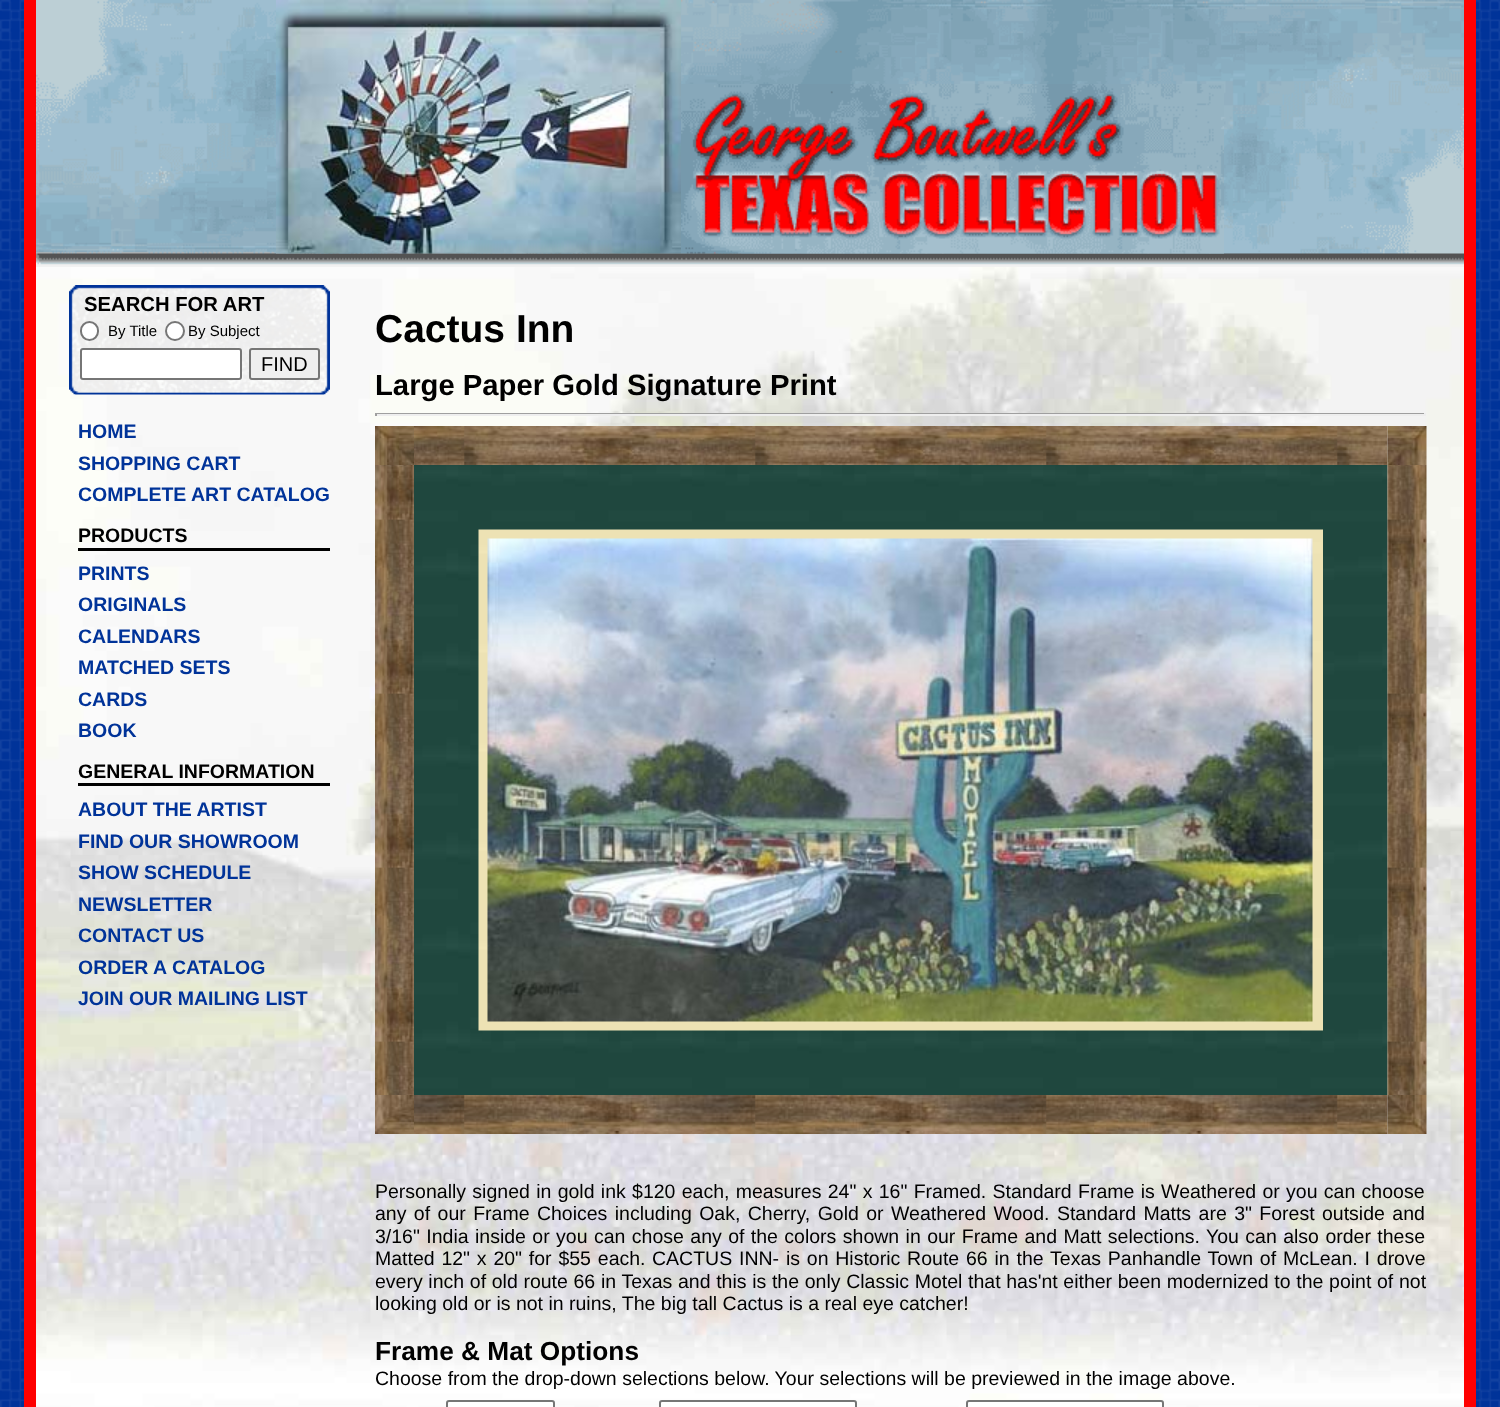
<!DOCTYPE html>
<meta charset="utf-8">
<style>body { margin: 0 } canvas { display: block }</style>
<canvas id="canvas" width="1500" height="1407"></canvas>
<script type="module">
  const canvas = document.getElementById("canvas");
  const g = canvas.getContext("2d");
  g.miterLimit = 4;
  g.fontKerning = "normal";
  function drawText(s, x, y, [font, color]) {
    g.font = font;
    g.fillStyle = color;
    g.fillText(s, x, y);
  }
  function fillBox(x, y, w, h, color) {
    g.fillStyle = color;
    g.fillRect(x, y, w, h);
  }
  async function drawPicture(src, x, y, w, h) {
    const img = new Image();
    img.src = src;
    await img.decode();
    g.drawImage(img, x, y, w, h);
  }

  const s1 = ["bold 20.25px Liberation Sans", "#000000"];
  const s2 = ["15px Liberation Sans", "#000000"];
  const s3 = ["20px Liberation Sans", "#000000"];
  const s4 = ["bold 19.5px Liberation Sans", "#003399"];
  const s5 = ["bold 19.5px Liberation Sans", "#000000"];
  const s6 = ["bold 39px Liberation Sans", "#000000"];
  const s7 = ["bold 29.25px Liberation Sans", "#000000"];
  const s8 = ["19.5px Liberation Sans", "#000000"];
  const s9 = ["bold 26.25px Liberation Sans", "#000000"];

  fillBox(0, 0, 1500, 1407, "#003399");
  await drawPicture("pic1.png", 0, 0, 1500, 1407);
  await drawPicture("pic3.png", 36, 266, 1428, 1141);
  await drawPicture("pic2.png", 69, 285, 261, 110);
  drawText("SEARCH FOR ART", 84, 311, s1);
  g.fillStyle = "#FFFFFF";
  g.beginPath();
  g.roundRect(81, 322, 17, 18, 8.5);
  g.fill();
  g.strokeStyle = "#767676";
  g.lineWidth = 2;
  g.stroke();
  drawText("By Title", 108, 336, s2);
  g.fillStyle = "#FFFFFF";
  g.beginPath();
  g.arc(175, 331, 9, 0, Math.PI * 2);
  g.fill();
  g.stroke();
  drawText("By Subject", 188, 336, s2);
  g.fillStyle = "#FFFFFF";
  g.beginPath();
  g.roundRect(81, 349, 160, 30, 2);
  g.fill();
  g.stroke();
  g.fillStyle = "#EFEFEF";
  g.beginPath();
  g.roundRect(250, 349, 69, 30, 2);
  g.fill();
  g.stroke();
  drawText("FIND", 261, 371, s3);
  fillBox(1464, 0, 12, 1407, "#FF0000");
  fillBox(24, 0, 12, 1407, "#FF0000");
  await drawPicture("pic4.png", 36, 0, 1428, 267);
  await drawPicture("pic5.png", 276, 0, 405, 254);
  await drawPicture("pic6.png", 681, 84, 543, 170);
  drawText("HOME", 78, 438, s4);
  drawText("SHOPPING CART", 78, 470, s4);
  drawText("COMPLETE ART CATALOG", 78, 501, s4);
  fillBox(78, 548, 252, 3, "#000000");
  drawText("PRODUCTS", 78, 542, s5);
  drawText("PRINTS", 78, 580, s4);
  drawText("ORIGINALS", 78, 611, s4);
  drawText("CALENDARS", 78, 643, s4);
  drawText("MATCHED SETS", 78, 674, s4);
  drawText("CARDS", 78, 706, s4);
  drawText("BOOK", 78, 737, s4);
  fillBox(78, 783, 252, 3, "#000000");
  drawText("GENERAL INFORMATION", 78, 778, s5);
  drawText("ABOUT THE ARTIST", 78, 816, s4);
  drawText("FIND OUR SHOWROOM", 78, 848, s4);
  drawText("SHOW SCHEDULE", 78, 879, s4);
  drawText("NEWSLETTER", 78, 911, s4);
  drawText("CONTACT US", 78, 942, s4);
  drawText("ORDER A CATALOG", 78, 974, s4);
  drawText("JOIN OUR MAILING LIST", 78, 1005, s4);
  drawText("Cactus Inn", 375, 342, s6);
  drawText("Large Paper Gold Signature Print", 375, 395, s7);
  fillBox(375, 413, 1050, 1, "#9F9F9F");
  fillBox(1424, 413, 2, 3, "#EEEEEE");
  fillBox(375, 414, 1050, 2, "#EEEEEE");
  fillBox(375, 413, 2, 3, "#9F9F9F");
  await drawPicture("pic7.png", 375, 426, 39, 39);
  await drawPicture("pic8.png", 414, 426, 974, 39);
  await drawPicture("pic9.png", 1387, 426, 40, 39);
  await drawPicture("pic10.png", 375, 465, 39, 630);
  await drawPicture("pic11.png", 414, 465, 974, 630);
  await drawPicture("pic12.png", 478, 529, 845, 502);
  await drawPicture("pic13.png", 487, 538, 826, 484);
  await drawPicture("pic14.png", 1387, 465, 40, 630);
  await drawPicture("pic15.png", 375, 1095, 39, 39);
  await drawPicture("pic16.png", 414, 1095, 974, 39);
  await drawPicture("pic17.png", 1387, 1095, 40, 39);
  g.wordSpacing = "0.9px";
  drawText("Personally signed in gold ink $120 each, measures 24\" x 16\" Framed. Standard Frame is Weathered or you can choose", 375, 1198, s8);
  g.wordSpacing = "2px";
  drawText("any of our Frame Choices including Oak, Cherry, Gold or Weathered Wood. Standard Matts are 3\" Forest outside and", 375, 1220, s8);
  g.wordSpacing = "1px";
  drawText("3/16\" India inside or you can chose any of the colors shown in our Frame and Matt selections. You can also order these", 375, 1243, s8);
  g.wordSpacing = "1.4px";
  drawText("Matted 12\" x 20\" for $55 each.", 375, 1265, s8);
  drawText("CACTUS INN- is on Historic Route 66 in the Texas Panhandle Town of McLean. I drove", 652, 1265, s8);
  g.wordSpacing = "0.25px";
  drawText("every inch of old route 66 in Texas and this is the only Classic Motel that has'nt either been modernized to the point of not", 375, 1288, s8);
  g.wordSpacing = "0px";
  drawText("looking old or is not in ruins, The big tall Cactus is a real eye catcher!", 375, 1310, s8);
  drawText("Frame & Mat Options", 375, 1360, s9);
  drawText("Choose from the drop-down selections below. Your selections will be previewed in the image above.", 375, 1385, s8);
  g.fillStyle = "#FFFFFF";
  g.beginPath();
  g.roundRect(447, 1401, 107, 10, 2);
  g.fill();
  g.stroke();
  g.beginPath();
  g.roundRect(660, 1401, 196, 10, 2);
  g.fill();
  g.stroke();
  g.beginPath();
  g.roundRect(967, 1401, 196, 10, 2);
  g.fill();
  g.stroke();
</script>
